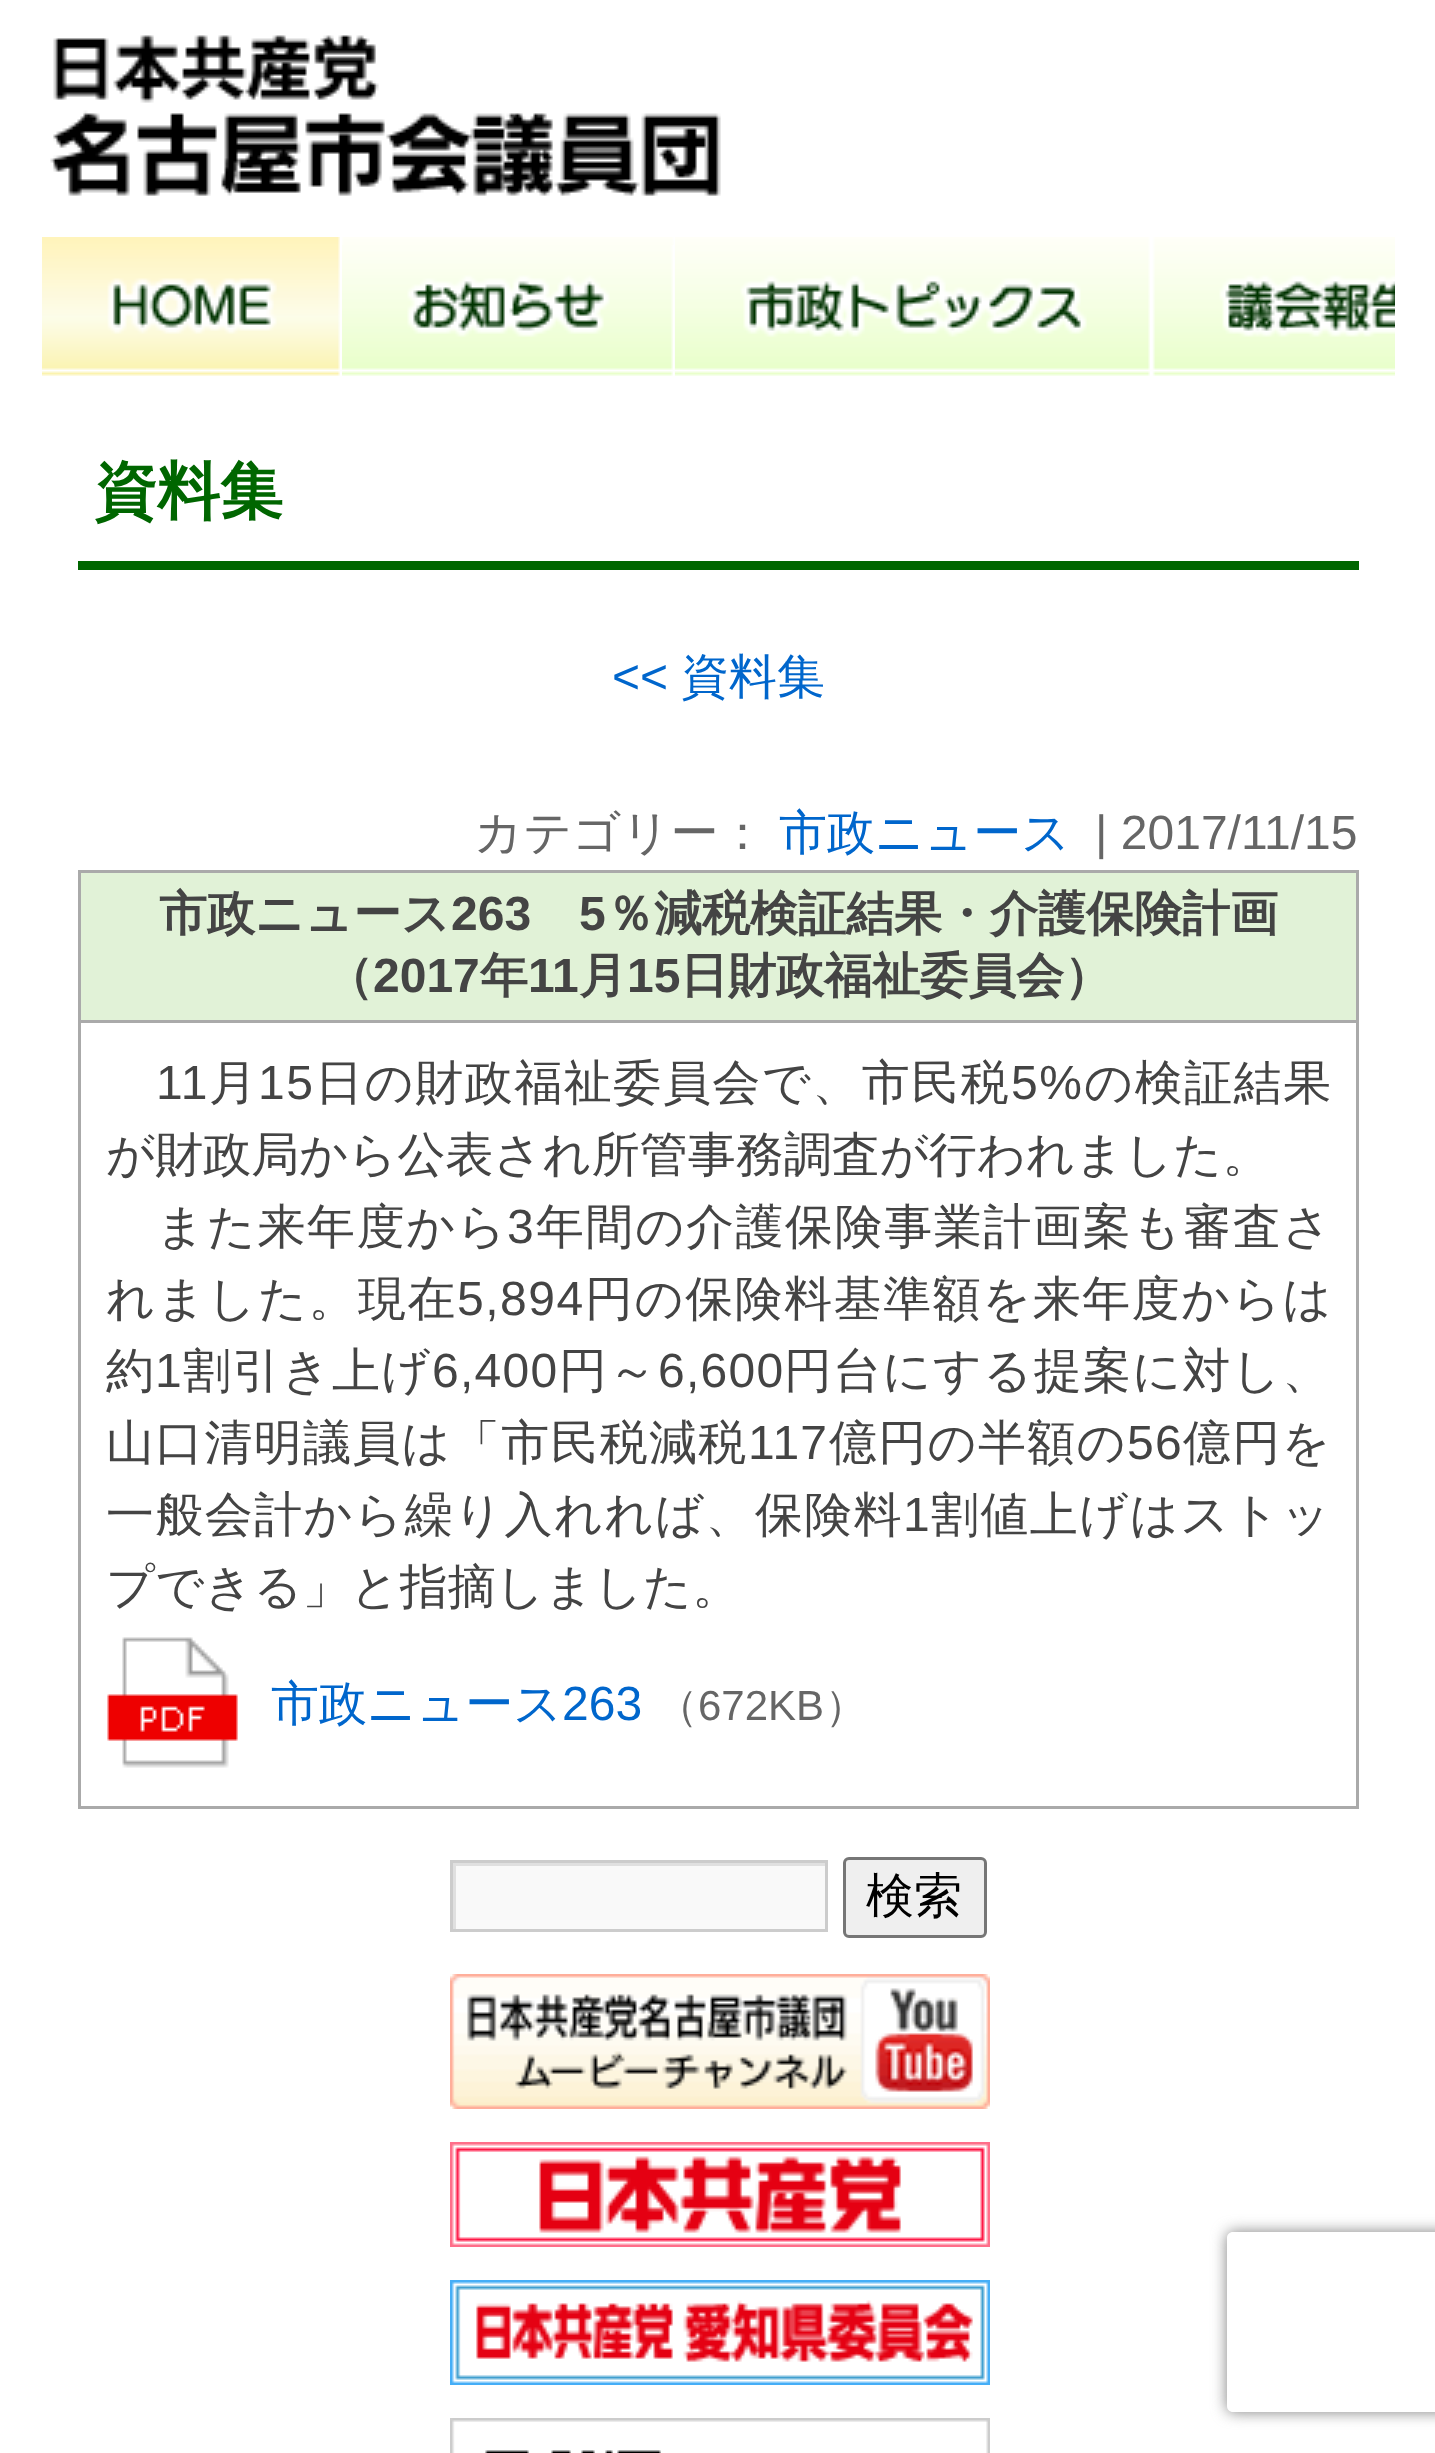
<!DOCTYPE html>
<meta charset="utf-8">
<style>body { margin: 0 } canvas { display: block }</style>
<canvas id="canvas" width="1435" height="2453"></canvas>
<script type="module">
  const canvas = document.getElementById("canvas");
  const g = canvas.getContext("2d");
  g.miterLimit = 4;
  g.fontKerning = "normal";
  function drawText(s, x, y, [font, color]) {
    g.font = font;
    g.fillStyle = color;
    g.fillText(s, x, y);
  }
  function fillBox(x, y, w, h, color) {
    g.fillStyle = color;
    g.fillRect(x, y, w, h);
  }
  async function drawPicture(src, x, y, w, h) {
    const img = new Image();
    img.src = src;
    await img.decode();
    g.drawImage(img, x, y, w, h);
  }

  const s1 = ["bold 63px WenQuanYi Zen Hei", "#006600"];
  const s2 = ["48px Liberation Sans", "#0066CC"];
  const s3 = ["500 48px WenQuanYi Zen Hei", "#0066CC"];
  const s4 = ["500 48px WenQuanYi Zen Hei", "#666666"];
  const s5 = ["48px Liberation Sans", "#666666"];
  const s6 = ["bold 48px WenQuanYi Zen Hei", "#444444"];
  const s7 = ["bold 48px Liberation Sans", "#444444"];
  const s8 = ["48px Liberation Sans", "#444444"];
  const s9 = ["500 48px WenQuanYi Zen Hei", "#444444"];
  const s10 = ["500 42px WenQuanYi Zen Hei", "#666666"];
  const s11 = ["42px Liberation Sans", "#666666"];
  const s12 = ["500 48px WenQuanYi Zen Hei", "#000000"];

  fillBox(0, 0, 1435, 2453, "#FFFFFF");
  await drawPicture("pic1.png", 50, 35, 671, 161);
  await drawPicture("pic2.png", 42, 237, 1353, 139);
  await drawPicture("pic3.png", 113, 237, 229, 139);
  await drawPicture("pic4.png", 342, 245, 332, 131);
  await drawPicture("pic5.png", 675, 237, 477, 139);
  fillBox(78, 561, 1281, 9, "#006600");
  drawText("資料集", 94, 513, s1);
  drawText("<<", 612, 693, s2);
  drawText("資料集", 681, 693, s3);
  drawText("カテゴリー：", 474, 849, s4);
  drawText("市政ニュース", 779, 849, s3);
  drawText("| 2017/11/15", 1095, 849, s5);
  g.fillStyle = "#E1F2D7";
  g.beginPath();
  g.rect(79.5, 871.5, 1278, 150);
  g.fill();
  g.strokeStyle = "#AAAAAA";
  g.lineWidth = 3;
  g.stroke();
  drawText("市政ニュース", 159, 930, s6);
  drawText("263", 451, 930, s7);
  drawText("5", 579, 930, s7);
  drawText("％減税検証結果・介護保険計画", 606, 930, s6);
  drawText("（", 325, 992, s6);
  drawText("2017", 373, 992, s7);
  drawText("年", 480, 992, s6);
  drawText("11", 528, 992, s7);
  drawText("月", 579, 992, s6);
  drawText("15", 627, 992, s7);
  drawText("日財政福祉委員会）", 680, 992, s6);
  fillBox(1356, 1023, 3, 786, "#AAAAAA");
  fillBox(78, 1806, 1281, 3, "#AAAAAA");
  fillBox(78, 1023, 3, 786, "#AAAAAA");
  g.letterSpacing = "1.5px";
  drawText("11", 156, 1099, s8);
  drawText("月", 209, 1099, s9);
  drawText("15", 258, 1099, s8);
  drawText("日の財政福祉委員会で、市民税", 315, 1099, s9);
  drawText("5%", 1011, 1099, s8);
  drawText("の検証結果", 1084, 1099, s9);
  g.letterSpacing = "0px";
  drawText("が財政局から公表され所管事務調査が行われました。", 106, 1171, s9);
  g.letterSpacing = "1.6px";
  drawText("また来年度から", 156, 1243, s9);
  drawText("3", 507, 1243, s8);
  drawText("年間の介護保険事業計画案も審査さ", 536, 1243, s9);
  g.letterSpacing = "1.5px";
  drawText("れました。現在", 106, 1315, s9);
  drawText("5,894", 457, 1315, s8);
  drawText("円の保険料基準額を来年度からは", 585, 1315, s9);
  g.letterSpacing = "1.25px";
  drawText("約", 106, 1387, s9);
  drawText("1", 155, 1387, s8);
  drawText("割引き上げ", 183, 1387, s9);
  drawText("6,400", 432, 1387, s8);
  drawText("円～", 559, 1387, s9);
  drawText("6,600", 658, 1387, s8);
  drawText("円台にする提案に対し、", 784, 1387, s9);
  drawText("山口清明議員は「市民税減税", 106, 1459, s9);
  drawText("117", 748, 1459, s8);
  drawText("億円の半額の", 829, 1459, s9);
  drawText("56", 1127, 1459, s8);
  drawText("億円を", 1183, 1459, s9);
  g.letterSpacing = "1.4px";
  drawText("一般会計から繰り入れれば、保険料", 106, 1531, s9);
  drawText("1", 903, 1531, s8);
  drawText("割値上げはストッ", 931, 1531, s9);
  g.letterSpacing = "0px";
  drawText("プできる」と指摘しました。", 106, 1603, s9);
  await drawPicture("pic6.png", 107, 1637, 131, 131);
  drawText("市政ニュース", 271, 1720, s3);
  drawText("263", 562, 1720, s2);
  drawText("（", 656, 1720, s10);
  drawText("672KB", 698, 1720, s11);
  drawText("）", 825, 1720, s10);
  fillBox(456, 1866, 369, 63, "#F9F9F9");
  g.save();
  g.beginPath();
  g.rect(453, 1863, 372, 66);
  g.clip();
  g.fillStyle = "#E0E0E0";
  g.beginPath();
  g.moveTo(156, 1566);
  g.lineTo(1122, 1566);
  g.lineTo(1122, 2226);
  g.lineTo(156, 2226);
  g.closePath();
  g.moveTo(456, 1866);
  g.lineTo(828, 1866);
  g.lineTo(828, 1932);
  g.lineTo(456, 1932);
  g.closePath();
  g.fill("evenodd");
  g.restore();
  g.strokeStyle = "#CCCCCC";
  g.strokeRect(451.5, 1861.5, 375, 69);
  g.fillStyle = "#EFEFEF";
  g.beginPath();
  g.roundRect(844.5, 1858.5, 141, 78, 4.5);
  g.fill();
  g.strokeStyle = "#767676";
  g.stroke();
  drawText("検索", 866, 1912, s12);
  await drawPicture("pic7.png", 450, 1974, 540, 135);
  await drawPicture("pic8.png", 450, 2142, 540, 105);
  await drawPicture("pic9.png", 450, 2280, 540, 105);
  await drawPicture("pic10.png", 450, 2418, 540, 35);
  g.save();
  g.beginPath();
  g.moveTo(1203, 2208);
  g.lineTo(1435, 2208);
  g.lineTo(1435, 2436);
  g.lineTo(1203, 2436);
  g.closePath();
  g.moveTo(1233, 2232);
  g.lineTo(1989, 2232);
  g.bezierCurveTo(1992.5, 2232, 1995, 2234.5, 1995, 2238);
  g.lineTo(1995, 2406);
  g.bezierCurveTo(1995, 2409.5, 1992.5, 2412, 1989, 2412);
  g.lineTo(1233, 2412);
  g.bezierCurveTo(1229.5, 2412, 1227, 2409.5, 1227, 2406);
  g.lineTo(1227, 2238);
  g.bezierCurveTo(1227, 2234.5, 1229.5, 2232, 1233, 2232);
  g.closePath();
  g.clip("evenodd");
  g.fillStyle = "#808080";
  g.filter = "blur(7.5px)";
  g.beginPath();
  g.roundRect(1227, 2232, 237, 180, 6);
  g.fill();
  g.filter = "none";
  g.restore();
</script>
